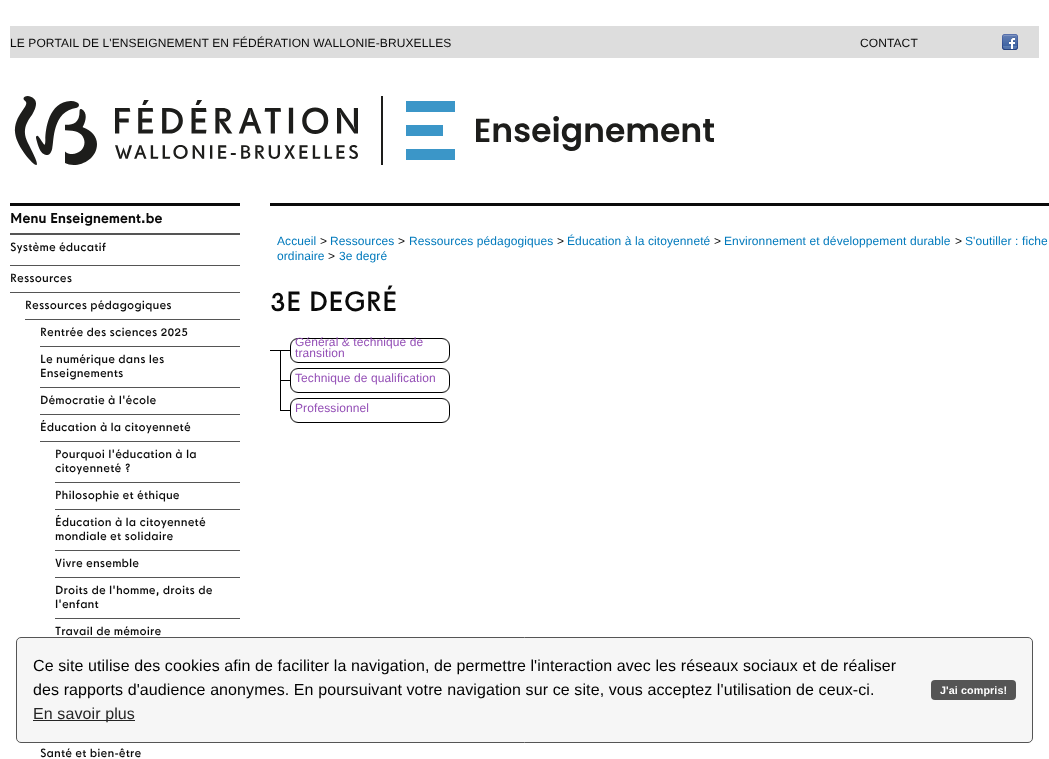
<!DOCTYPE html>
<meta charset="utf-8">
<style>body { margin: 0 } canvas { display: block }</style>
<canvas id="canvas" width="1049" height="759"></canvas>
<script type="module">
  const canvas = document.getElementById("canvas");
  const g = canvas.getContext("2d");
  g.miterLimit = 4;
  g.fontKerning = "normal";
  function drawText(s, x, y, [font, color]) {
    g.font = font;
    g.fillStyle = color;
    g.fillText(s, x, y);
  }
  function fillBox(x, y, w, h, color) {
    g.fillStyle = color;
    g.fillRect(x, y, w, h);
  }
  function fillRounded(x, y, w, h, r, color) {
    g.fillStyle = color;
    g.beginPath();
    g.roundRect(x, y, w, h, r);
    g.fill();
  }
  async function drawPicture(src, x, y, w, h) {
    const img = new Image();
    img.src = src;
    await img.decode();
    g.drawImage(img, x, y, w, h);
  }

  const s1 = ["12px Liberation Sans", "#0A0A0A"];
  const s2 = ["bold 14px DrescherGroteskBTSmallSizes", "#0A0A0A"];
  const s3 = ["12px DrescherGroteskBTSmallSizes", "#0A0A0A"];
  const s4 = ["12px Liberation Sans", "#0079BC"];
  const s5 = ["28px DrescherGroteskBTSmallSizes", "#0A0A0A"];
  const s6 = ["12px Liberation Sans", "#944FB6"];
  const s7 = ["16px Liberation Sans", "#000000"];
  const s8 = ["16px Liberation Sans", "#252525"];
  const s9 = ["bold 10.75px Liberation Sans", "#FFFFFF"];

  fillBox(0, 0, 1049, 759, "#FFFFFF");
  fillBox(10, 26, 1029, 32, "#DDDDDD");
  g.letterSpacing = "0.1px";
  drawText("LE PORTAIL DE L'ENSEIGNEMENT EN FÉDÉRATION WALLONIE-BRUXELLES", 10, 47, s1);
  drawText("CONTACT", 860, 47, s1);
  await drawPicture("pic1.png", 1002, 34, 16, 16);
  await drawPicture("pic2.png", 14, 96, 700, 69);
  fillBox(10, 203, 230, 3, "#0A0A0A");
  fillBox(10, 233, 230, 2, "#555555");
  drawText("Menu Enseignement.be", 10, 223, s2);
  drawText("Système éducatif", 10, 251, s3);
  fillBox(10, 265, 230, 1, "#555555");
  drawText("Ressources", 10, 282, s3);
  fillBox(10, 292, 230, 1, "#555555");
  drawText("Ressources pédagogiques", 25, 309, s3);
  fillBox(25, 319, 215, 1, "#555555");
  drawText("Rentrée des sciences 2025", 40, 336, s3);
  fillBox(40, 346, 200, 1, "#555555");
  drawText("Le numérique dans les", 40, 363, s3);
  drawText("Enseignements", 40, 377, s3);
  fillBox(40, 387, 200, 1, "#555555");
  drawText("Démocratie à l'école", 40, 404, s3);
  fillBox(40, 414, 200, 1, "#555555");
  drawText("Éducation à la citoyenneté", 40, 431, s3);
  fillBox(40, 441, 200, 1, "#555555");
  drawText("Pourquoi l'éducation à la", 55, 458, s3);
  drawText("citoyenneté ?", 55, 472, s3);
  fillBox(55, 482, 185, 1, "#555555");
  drawText("Philosophie et éthique", 55, 499, s3);
  fillBox(55, 509, 185, 1, "#555555");
  drawText("Éducation à la citoyenneté", 55, 526, s3);
  drawText("mondiale et solidaire", 55, 540, s3);
  fillBox(55, 550, 185, 1, "#555555");
  drawText("Vivre ensemble", 55, 567, s3);
  fillBox(55, 577, 185, 1, "#555555");
  drawText("Droits de l'homme, droits de", 55, 594, s3);
  drawText("l'enfant", 55, 608, s3);
  fillBox(55, 618, 185, 1, "#555555");
  drawText("Travail de mémoire", 55, 635, s3);
  drawText("Santé et bien-être", 40, 757, s3);
  fillBox(270, 203, 779, 3, "#0A0A0A");
  drawText("Accueil", 277, 245, s4);
  drawText(">", 320, 245, s1);
  drawText("Ressources", 330, 245, s4);
  drawText(">", 398, 245, s1);
  drawText("Ressources pédagogiques", 409, 245, s4);
  drawText(">", 557, 245, s1);
  drawText("Éducation à la citoyenneté", 567, 245, s4);
  drawText(">", 714, 245, s1);
  drawText("Environnement et développement durable", 724, 245, s4);
  drawText(">", 955, 245, s1);
  drawText("S'outiller : fiche", 965, 245, s4);
  drawText("ordinaire", 277, 260, s4);
  drawText(">", 328, 260, s1);
  drawText("3e degré", 339, 260, s4);
  drawText("3E DEGRÉ", 270, 311, s5);
  await drawPicture("pic3.png", 270, 338, 180, 28);
  drawText("Général & technique de", 295, 346, s6);
  drawText("transition", 295, 357, s6);
  await drawPicture("pic4.png", 280, 366, 170, 30);
  drawText("Technique de qualification", 295, 382, s6);
  await drawPicture("pic5.png", 280, 396, 170, 27);
  drawText("Professionnel", 295, 412, s6);
  g.fillStyle = "#F6F6F6";
  g.beginPath();
  g.roundRect(16.5, 637.5, 1016, 105, 4.5);
  g.fill();
  g.strokeStyle = "#555555";
  g.stroke();
  drawText("Ce site utilise des cookies afin de faciliter la navigation, de permettre l'interaction avec les réseaux sociaux et de réaliser", 33, 671, s7);
  drawText("des rapports d'audience anonymes. En poursuivant votre navigation sur ce site, vous acceptez l'utilisation de ceux-ci.", 33, 695, s7);
  fillBox(33, 720, 102, 1, "#252525");
  drawText("En savoir plus", 33, 719, s8);
  fillRounded(931, 680, 85, 20, 4, "#555555");
  drawText("J'ai compris!", 940, 694, s9);
</script>
